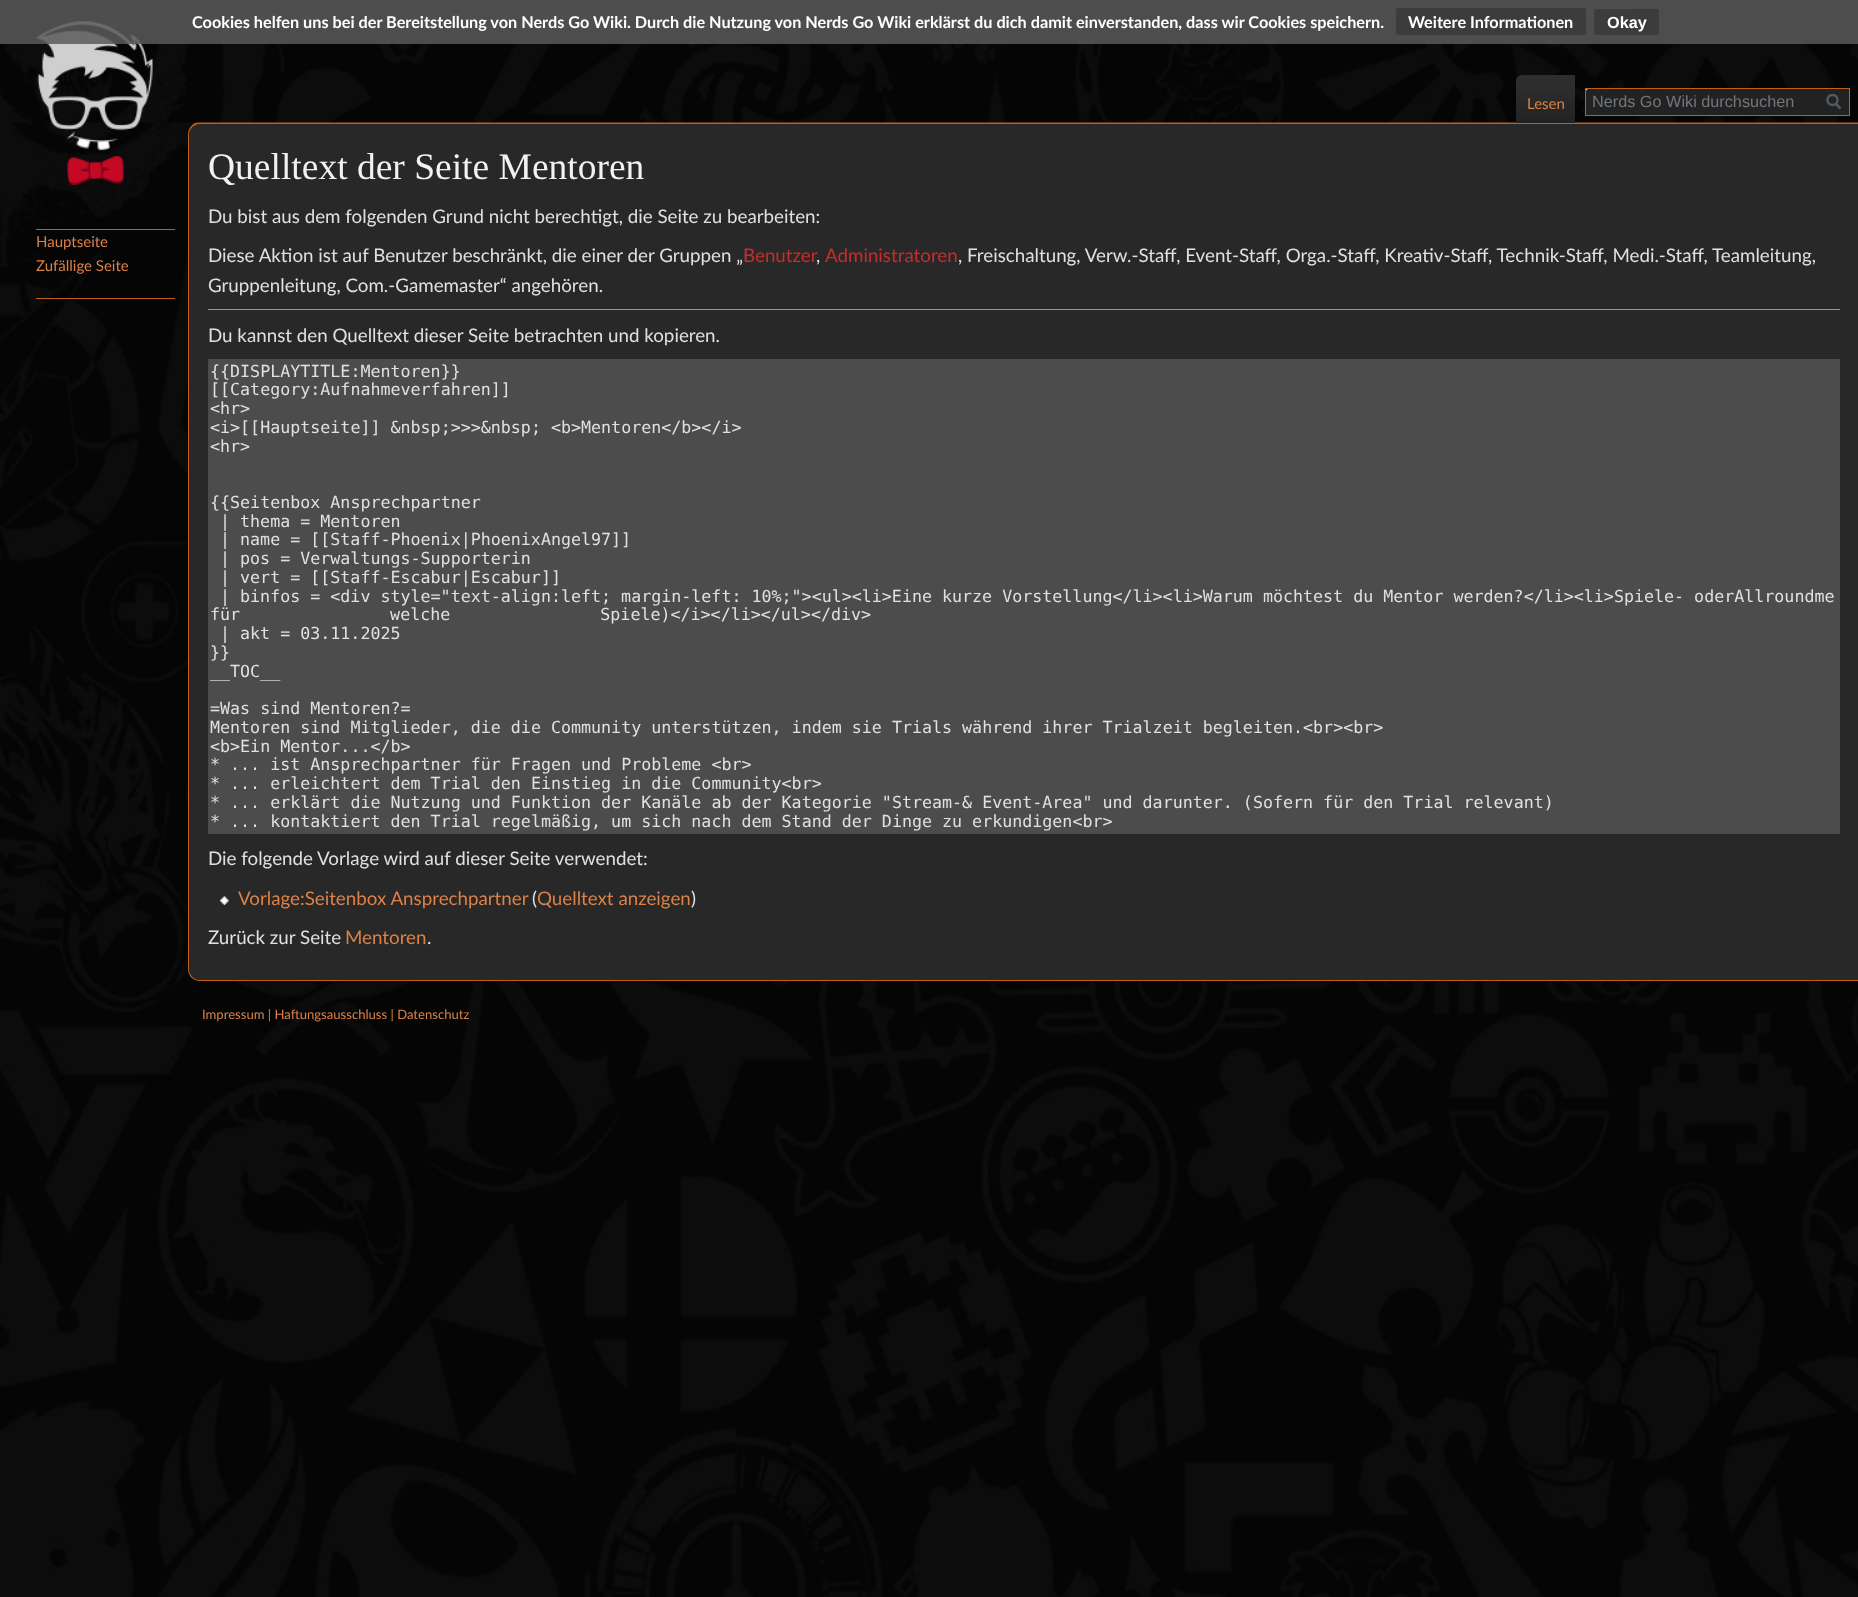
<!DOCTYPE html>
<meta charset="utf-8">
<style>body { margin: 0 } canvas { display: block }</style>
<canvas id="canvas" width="1858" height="1597"></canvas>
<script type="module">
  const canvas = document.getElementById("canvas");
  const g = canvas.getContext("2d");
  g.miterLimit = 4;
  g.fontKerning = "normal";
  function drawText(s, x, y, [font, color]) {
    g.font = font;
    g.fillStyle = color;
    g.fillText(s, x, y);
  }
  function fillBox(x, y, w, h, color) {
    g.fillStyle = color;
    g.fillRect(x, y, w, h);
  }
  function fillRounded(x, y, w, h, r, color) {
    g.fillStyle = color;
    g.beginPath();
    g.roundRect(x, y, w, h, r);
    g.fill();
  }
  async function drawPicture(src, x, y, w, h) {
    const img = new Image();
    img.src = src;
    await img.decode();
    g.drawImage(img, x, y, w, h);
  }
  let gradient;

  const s1 = ["bold 16.25px Lato", "#FFFFFF"];
  const s2 = ["bold 16.25px Liberation Sans", "#FFFFFF"];
  const s3 = ["37.5px Liberation Serif", "#F2F2F2"];
  const s4 = ["18.75px Lato", "#E0E0E0"];
  const s5 = ["18.75px Lato", "#CA2C2C"];
  const s6 = ["16.67px DejaVu Sans Mono", "#E0E0E0"];
  const s7 = ["18.75px Lato", "#DD8247"];
  const s8 = ["15px Lato", "#DD8247"];
  const s9 = ["16.25px Liberation Sans", "#72777D"];
  const s10 = ["13.1px Lato", "#DD8247"];

  fillBox(0, 0, 1858, 1597, "#FFFFFF");
  await drawPicture("pic1.png", 0, 122, 1858, 1475);
  g.fillStyle = "#282828";
  g.beginPath();
  g.moveTo(200, 124);
  g.lineTo(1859, 124);
  g.lineTo(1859, 980);
  g.lineTo(200, 980);
  g.bezierCurveTo(194, 980, 189, 975, 189, 969);
  g.lineTo(189, 135);
  g.bezierCurveTo(189, 129, 194, 124, 200, 124);
  g.closePath();
  g.fill();
  g.fillStyle = "#BF5F18";
  g.beginPath();
  g.moveTo(200, 122);
  g.lineTo(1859, 122);
  g.lineTo(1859, 981);
  g.lineTo(200, 981);
  g.bezierCurveTo(193, 981, 188, 976, 188, 969);
  g.lineTo(188, 135);
  g.bezierCurveTo(188, 128, 193, 122, 200, 122);
  g.closePath();
  g.moveTo(200, 124);
  g.lineTo(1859, 124);
  g.lineTo(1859, 980);
  g.lineTo(200, 980);
  g.bezierCurveTo(194, 980, 189, 975, 189, 969);
  g.lineTo(189, 135);
  g.bezierCurveTo(189, 129, 194, 124, 200, 124);
  g.closePath();
  g.fill("evenodd");
  await drawPicture("pic3.png", 0, 0, 1858, 123);
  await drawPicture("pic5.png", 36, 21, 117, 164);
  fillBox(0, 0, 1858, 44, "rgba(90, 90, 90, 0.85)");
  drawText("Cookies helfen uns bei der Bereitstellung von Nerds Go Wiki. Durch die Nutzung von Nerds Go Wiki erklärst du dich damit einverstanden, dass wir Cookies speichern.", 192, 28, s1);
  fillRounded(1396, 8, 190, 27, 2.5, "#3C3C3C");
  drawText("Weitere Informationen", 1408, 28, s1);
  fillRounded(1594, 9, 65, 26, 2.5, "#3C3C3C");
  drawText("Okay", 1607, 28, s2);
  drawText("Quelltext der Seite Mentoren", 208, 179, s3);
  drawText("Du bist aus dem folgenden Grund nicht berechtigt, die Seite zu bearbeiten:", 208, 223, s4);
  drawText("Diese Aktion ist auf Benutzer beschränkt, die einer der Gruppen „", 208, 262, s4);
  drawText("Benutzer", 743, 262, s5);
  drawText(",", 816, 262, s4);
  drawText("Administratoren", 825, 262, s5);
  drawText(", Freischaltung, Verw.-Staff, Event-Staff, Orga.-Staff, Kreativ-Staff, Technik-Staff, Medi.-Staff, Teamleitung,", 958, 262, s4);
  drawText("Gruppenleitung, Com.-Gamemaster“ angehören.", 208, 292, s4);
  fillBox(208, 309, 1632, 1, "#DD8247");
  drawText("Du kannst den Quelltext dieser Seite betrachten und kopieren.", 208, 342, s4);
  fillBox(208, 359, 1632, 475, "#4C4C4C");
  drawText("{{DISPLAYTITLE:Mentoren}}", 210, 377, s6);
  drawText("[[Category:Aufnahmeverfahren]]", 210, 395, s6);
  drawText("<hr>", 210, 414, s6);
  drawText("<i>[[Hauptseite]] &nbsp;>>>&nbsp; <b>Mentoren<\/b><\/i>", 210, 433, s6);
  drawText("<hr>", 210, 452, s6);
  drawText("{{Seitenbox Ansprechpartner", 210, 508, s6);
  drawText("| thema = Mentoren", 220, 527, s6);
  drawText("| name = [[Staff-Phoenix|PhoenixAngel97]]", 220, 545, s6);
  drawText("| pos = Verwaltungs-Supporterin", 220, 564, s6);
  drawText("| vert = [[Staff-Escabur|Escabur]]", 220, 583, s6);
  drawText("| binfos = <div style=\"text-align:left; margin-left: 10%;\"><ul><li>Eine kurze Vorstellung<\/li><li>Warum möchtest du Mentor werden?<\/li><li>Spiele- oderAllroundme", 220, 602, s6);
  g.wordSpacing = "140px";
  drawText("für welche Spiele)<\/i><\/li><\/ul><\/div>", 210, 620, s6);
  g.wordSpacing = "0px";
  drawText("| akt = 03.11.2025", 220, 639, s6);
  drawText("}}", 210, 658, s6);
  drawText("__TOC__", 210, 677, s6);
  drawText("=Was sind Mentoren?=", 210, 714, s6);
  drawText("Mentoren sind Mitglieder, die die Community unterstützen, indem sie Trials während ihrer Trialzeit begleiten.<br><br>", 210, 733, s6);
  drawText("<b>Ein Mentor...<\/b>", 210, 752, s6);
  drawText("* ... ist Ansprechpartner für Fragen und Probleme <br>", 210, 770, s6);
  drawText("* ... erleichtert dem Trial den Einstieg in die Community<br>", 210, 789, s6);
  drawText("* ... erklärt die Nutzung und Funktion der Kanäle ab der Kategorie \"Stream-& Event-Area\" und darunter. (Sofern für den Trial relevant)", 210, 808, s6);
  drawText("* ... kontaktiert den Trial regelmäßig, um sich nach dem Stand der Dinge zu erkundigen<br>", 210, 827, s6);
  drawText("Die folgende Vorlage wird auf dieser Seite verwendet:", 208, 865, s4);
  await drawPicture("pic2.png", 220, 896, 9, 9);
  drawText("Vorlage:Seitenbox Ansprechpartner", 238, 905, s7);
  drawText("(", 532, 905, s4);
  drawText("Quelltext anzeigen", 537, 905, s7);
  drawText(")", 691, 905, s4);
  drawText("Zurück zur Seite", 208, 944, s4);
  drawText("Mentoren", 345, 944, s7);
  drawText(".", 427, 944, s4);
  gradient = g.createLinearGradient(1546, 75, 1546, 123);
  gradient.addColorStop(0.2, "#2E2E2E");
  gradient.addColorStop(1, "#222222");
  g.fillStyle = gradient;
  g.beginPath();
  g.roundRect(1516, 75, 59, 48, [6, 0, 0, 0]);
  g.fill();
  drawText("Lesen", 1527, 109, s8);
  fillBox(1586, 111, 233, 4, "#222222");
  await drawPicture("pic4.png", 1586, 89, 3, 3);
  g.strokeStyle = "#BF5F18";
  g.strokeRect(1585.5, 88.5, 264, 27);
  fillRounded(1586, 89, 237, 25, 2.5, "#222222");
  drawText("Nerds Go Wiki durchsuchen", 1592, 107, s9);
  fillBox(1819, 89, 30, 26, "#222222");
  g.beginPath();
  g.moveTo(1840.5, 108.5);
  g.lineTo(1835.5, 103.5);
  g.strokeStyle = "#54595D";
  g.lineWidth = 2.5;
  g.stroke();
  g.save();
  g.beginPath();
  g.rect(1826, 94, 15, 16);
  g.clip();
  g.beginPath();
  g.arc(1832.5, 100, 5, 0, Math.PI * 2);
  g.stroke();
  g.restore();
  fillBox(36, 229, 139, 1, "#BF5F18");
  drawText("Hauptseite", 36, 247, s8);
  drawText("Zufällige Seite", 36, 271, s8);
  fillBox(36, 298, 139, 1, "#BF5F18");
  drawText("Impressum | Haftungsausschluss | Datenschutz", 202, 1019, s10);
</script>
